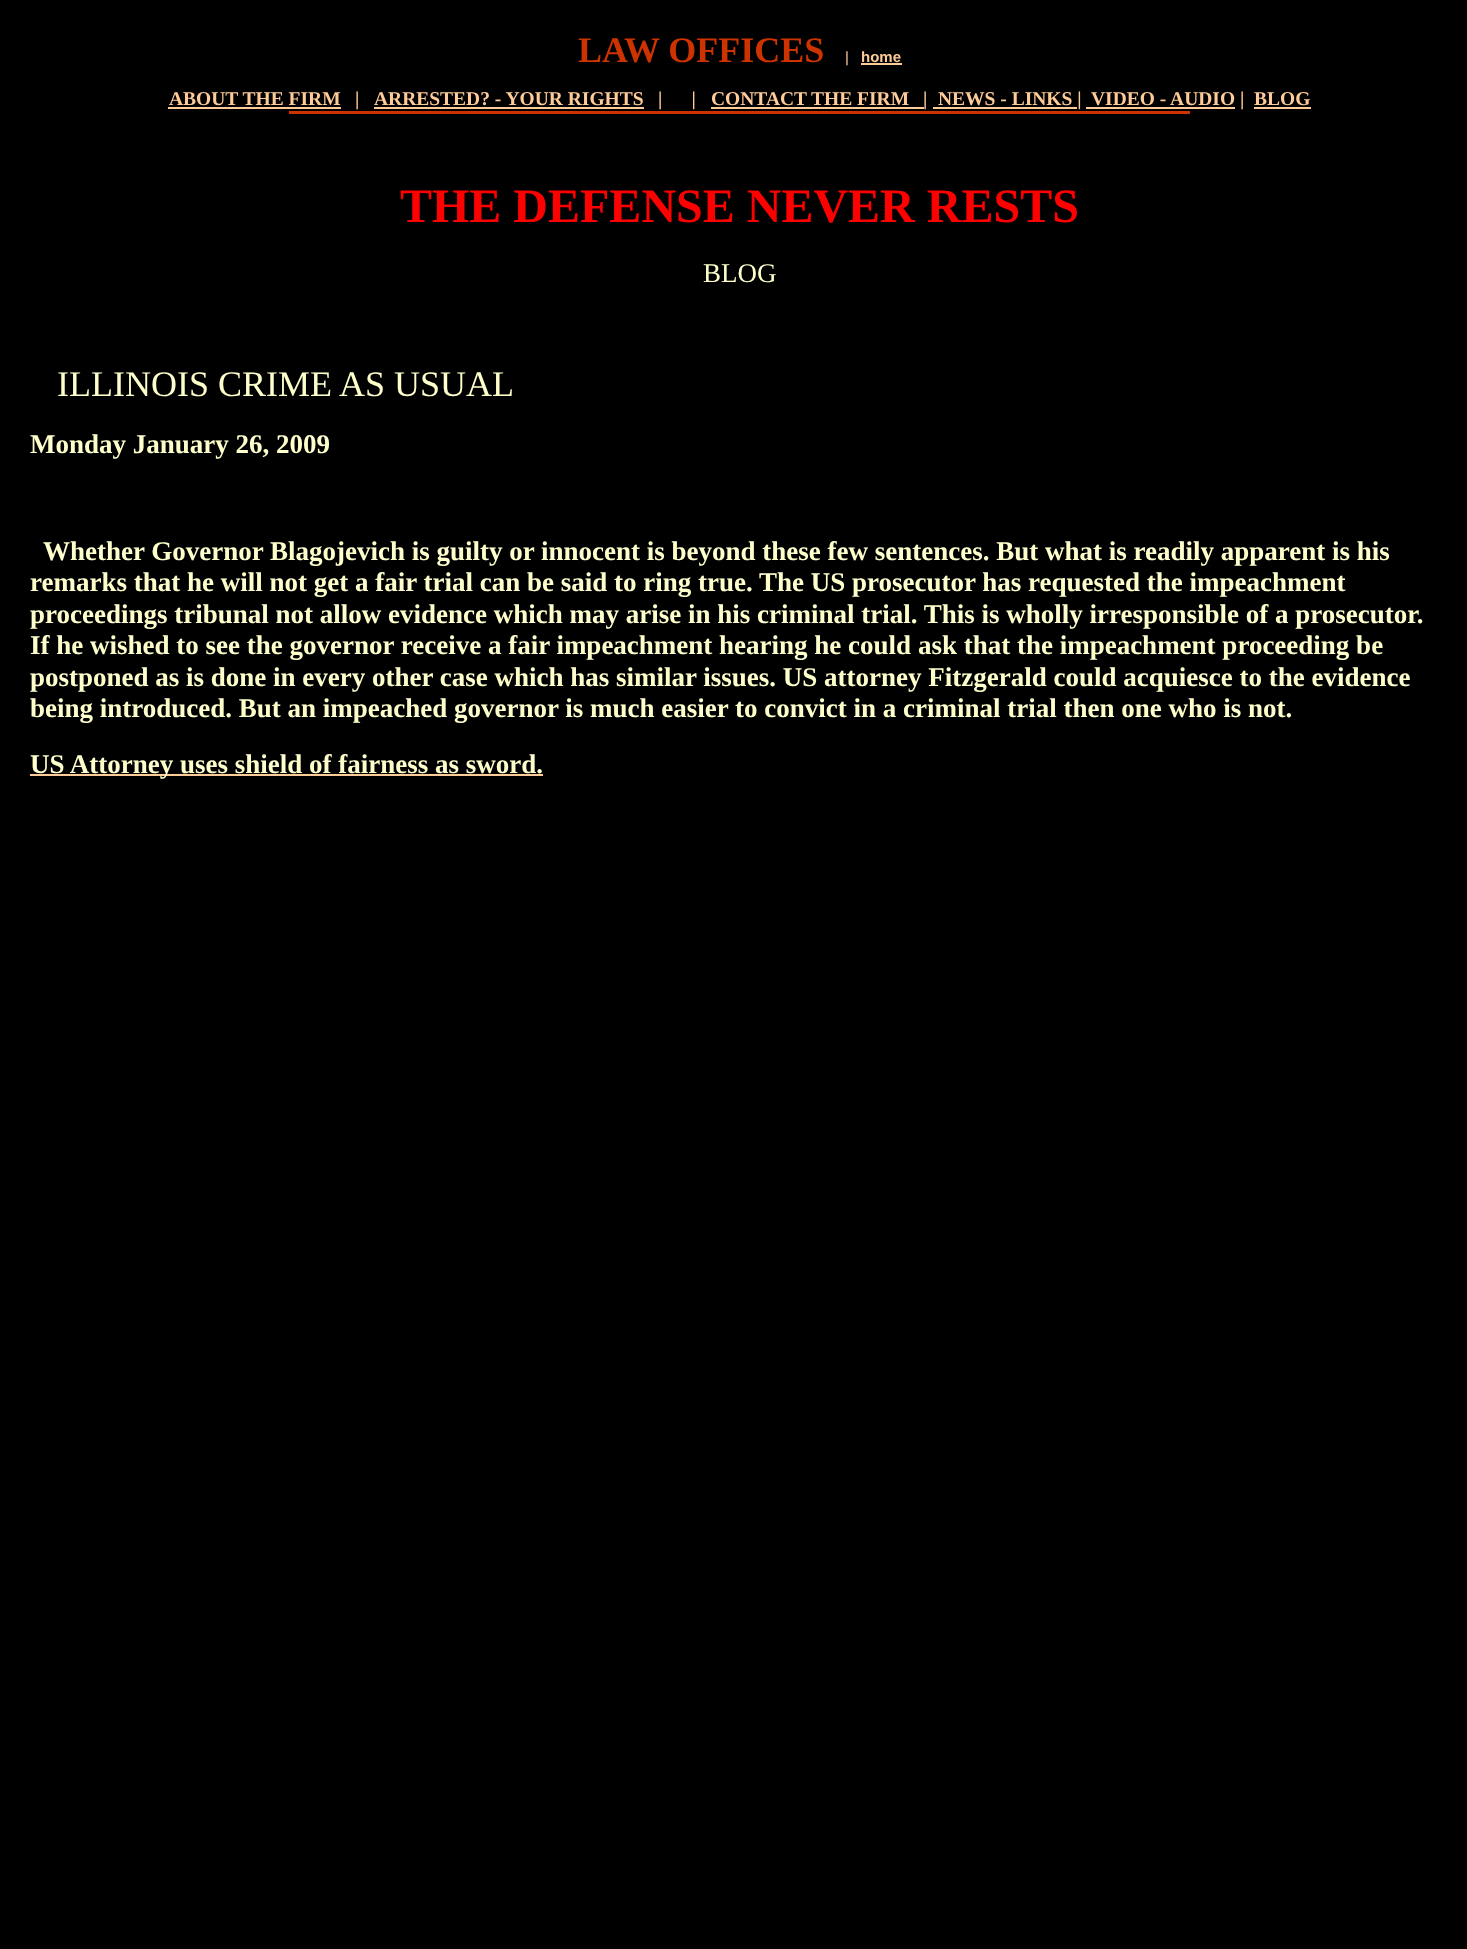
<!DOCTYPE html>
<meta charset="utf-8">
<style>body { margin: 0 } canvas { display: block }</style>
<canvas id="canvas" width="1467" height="1949"></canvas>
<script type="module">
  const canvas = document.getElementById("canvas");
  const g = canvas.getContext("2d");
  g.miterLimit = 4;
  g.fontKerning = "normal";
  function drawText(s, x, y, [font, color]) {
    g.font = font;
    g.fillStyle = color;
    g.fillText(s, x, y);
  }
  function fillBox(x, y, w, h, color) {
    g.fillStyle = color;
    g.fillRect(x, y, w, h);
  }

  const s1 = ["bold 36px Liberation Serif", "#CC3300"];
  const s2 = ["15px Liberation Sans", "#FFCC99"];
  const s3 = ["bold 15px Liberation Sans", "#FFCC99"];
  const s4 = ["bold 19.5px Liberation Serif", "#FFCC99"];
  const s5 = ["bold 48px Liberation Serif", "#FF0000"];
  const s6 = ["27px Liberation Serif", "#FFFFCC"];
  const s7 = ["36px Liberation Serif", "#FFFFCC"];
  const s8 = ["bold 27px Liberation Serif", "#FFFFCC"];

  fillBox(0, 0, 1467, 1949, "#000000");
  drawText("LAW OFFICES", 578, 62, s1);
  drawText("|", 845, 62, s2);
  drawText("home", 861, 62, s3);
  fillBox(861, 63, 41, 2, "#FFCC99");
  drawText("ABOUT THE FIRM", 169, 105, s4);
  fillBox(168, 107, 173, 2, "#FFCC99");
  drawText("|", 355, 105, s4);
  drawText("ARRESTED? - YOUR RIGHTS", 374, 105, s4);
  fillBox(374, 107, 270, 2, "#FFCC99");
  drawText("|      |", 658, 105, s4);
  drawText("CONTACT", 711, 105, s4);
  drawText("THE FIRM", 811, 105, s4);
  drawText("|", 923, 105, s4);
  fillBox(711, 107, 213, 2, "#FFCC99");
  fillBox(933, 107, 144, 2, "#FFCC99");
  drawText("NEWS - LINKS |", 938, 105, s4);
  fillBox(1086, 107, 149, 2, "#FFCC99");
  drawText("VIDEO - AUDIO |", 1091, 105, s4);
  drawText("BLOG", 1254, 105, s4);
  fillBox(1254, 107, 57, 2, "#FFCC99");
  fillBox(289, 111, 901, 3, "#CC3300");
  drawText("THE DEFENSE NEVER RESTS", 400, 222, s5);
  drawText("BLOG", 703, 282, s6);
  drawText("ILLINOIS CRIME AS USUAL", 57, 396, s7);
  drawText("Monday January 26, 2009", 30, 453, s8);
  drawText("Whether Governor Blagojevich is guilty or innocent is beyond these few sentences. But what is readily apparent is his", 43, 560, s8);
  drawText("remarks that he will not get a fair trial can be said to ring true. The US prosecutor has requested the impeachment", 30, 591, s8);
  drawText("proceedings tribunal not allow evidence which may arise in his criminal trial. This is wholly irresponsible of a prosecutor.", 30, 623, s8);
  drawText("If he wished to see the governor receive a fair impeachment hearing he could ask that the impeachment proceeding be", 30, 654, s8);
  drawText("postponed as is done in every other case which has similar issues. US attorney Fitzgerald could acquiesce to the evidence", 30, 686, s8);
  drawText("being introduced. But an impeached governor is much easier to convict in a criminal trial then one who is not.", 30, 717, s8);
  fillBox(30, 774, 513, 2, "#FFCC99");
  drawText("US Attorney uses shield of fairness as sword.", 30, 773, s8);
</script>
